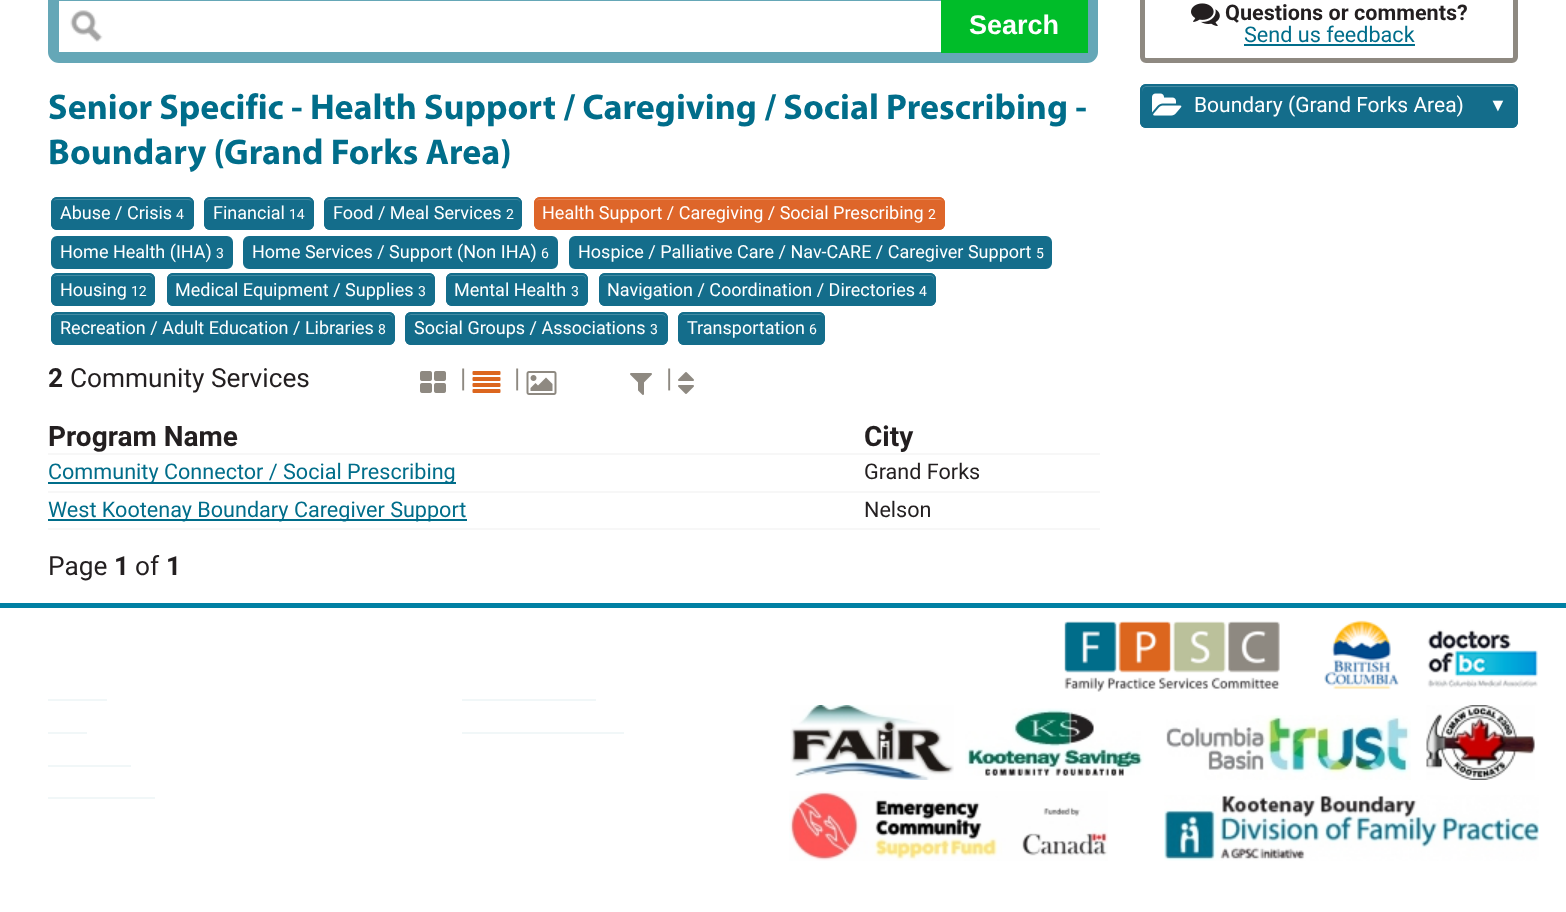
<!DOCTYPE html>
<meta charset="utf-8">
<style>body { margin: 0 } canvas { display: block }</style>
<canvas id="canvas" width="1566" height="912"></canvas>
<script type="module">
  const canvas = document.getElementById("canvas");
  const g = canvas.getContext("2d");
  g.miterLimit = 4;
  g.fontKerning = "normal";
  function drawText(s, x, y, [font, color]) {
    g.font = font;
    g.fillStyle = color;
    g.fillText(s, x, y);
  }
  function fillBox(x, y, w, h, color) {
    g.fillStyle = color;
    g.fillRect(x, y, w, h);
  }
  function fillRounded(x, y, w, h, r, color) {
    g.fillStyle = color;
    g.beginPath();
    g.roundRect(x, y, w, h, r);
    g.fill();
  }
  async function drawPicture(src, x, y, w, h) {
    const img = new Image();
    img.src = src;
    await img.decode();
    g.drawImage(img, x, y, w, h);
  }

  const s1 = ["bold 27px Liberation Sans", "#FFFFFF"];
  const s2 = ["bold 21.6px Roboto", "#231F20"];
  const s3 = ["21.6px Roboto", "#006D8A"];
  const s4 = ["bold 36px Myriad", "#006D8A"];
  const s5 = ["18px Roboto", "#FFFFFF"];
  const s6 = ["14px Roboto", "#FFFFFF"];
  const s7 = ["bold 26.25px Roboto", "#231F20"];
  const s8 = ["26.25px Roboto", "#231F20"];
  const s9 = ["26px Roboto", "#8E8981"];
  const s10 = ["bold 28px Roboto", "#231F20"];
  const s11 = ["21.6px Roboto", "#231F20"];
  const s12 = ["21px Roboto", "#FFFFFF"];
  const s13 = ["bold 18px Liberation Sans", "#FFFFFF"];

  fillBox(0, 0, 1566, 912, "#FFFFFF");
  g.beginPath();
  g.roundRect(53.5, -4.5, 1039, 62, 5.5);
  g.strokeStyle = "#65A7B7";
  g.lineWidth = 11;
  g.stroke();
  await drawPicture("pic1.png", 70, 10, 33, 32);
  fillBox(941, 0, 147, 53, "#00BD29");
  drawText("Search", 969, 34, s1);
  g.beginPath();
  g.roundRect(1142.5, -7.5, 373, 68, 3.5);
  g.strokeStyle = "#8E8981";
  g.lineWidth = 5;
  g.stroke();
  await drawPicture("pic2.png", 1191, 3, 29, 23);
  drawText("Questions or comments?", 1225, 20, s2);
  drawText("Send us feedback", 1244, 42, s3);
  fillBox(1244, 44, 171, 2, "#006D8A");
  drawText("Senior Specific - Health Support / Caregiving / Social Prescribing -", 48, 119, s4);
  drawText("Boundary (Grand Forks Area)", 48, 164, s4);
  fillRounded(51, 197, 143, 33, 6, "#146D8B");
  g.fillStyle = "#438AA2";
  g.beginPath();
  g.moveTo(56, 200);
  g.lineTo(188, 200);
  g.bezierCurveTo(190, 200, 192, 201, 192, 203);
  g.lineTo(192, 202);
  g.bezierCurveTo(192, 200, 190, 198, 188, 198);
  g.lineTo(57, 198);
  g.bezierCurveTo(55, 198, 54, 199, 53, 201);
  g.closePath();
  g.fill();
  g.beginPath();
  g.roundRect(52, 198, 141, 31, 5);
  g.strokeStyle = "#146D8B";
  g.lineWidth = 2;
  g.stroke();
  drawText("Abuse / Crisis", 60, 219, s5);
  drawText("4", 176, 219, s6);
  fillRounded(204, 197, 110, 33, 6, "#146D8B");
  g.fillStyle = "#438AA2";
  g.beginPath();
  g.moveTo(209, 200);
  g.lineTo(308, 200);
  g.bezierCurveTo(310, 200, 312, 201, 312, 203);
  g.bezierCurveTo(312, 194, 296, 198, 292, 198);
  g.lineTo(226, 198);
  g.bezierCurveTo(222, 198, 206, 194, 206, 203);
  g.bezierCurveTo(206, 201, 207, 200, 209, 200);
  g.closePath();
  g.fill();
  g.beginPath();
  g.roundRect(205, 198, 108, 31, 5);
  g.stroke();
  drawText("Financial", 213, 219, s5);
  drawText("14", 289, 219, s6);
  fillRounded(324, 197, 198, 33, 6, "#146D8B");
  g.fillStyle = "#438AA2";
  g.beginPath();
  g.moveTo(329, 200);
  g.lineTo(517, 200);
  g.bezierCurveTo(522, 200, 520, 208, 520, 211);
  g.lineTo(520, 227);
  g.bezierCurveTo(521, 226, 521, 225, 521, 224);
  g.lineTo(521, 202);
  g.bezierCurveTo(521, 200, 519, 198, 517, 198);
  g.lineTo(330, 198);
  g.bezierCurveTo(328, 198, 326, 200, 326, 202);
  g.lineTo(326, 203);
  g.bezierCurveTo(326, 201, 327, 200, 329, 200);
  g.closePath();
  g.fill();
  g.beginPath();
  g.roundRect(325, 198, 196, 31, 5);
  g.stroke();
  drawText("Food / Meal Services", 333, 219, s5);
  drawText("2", 506, 219, s6);
  fillRounded(534, 197, 411, 33, 6, "#DE662A");
  g.fillStyle = "#E58555";
  g.beginPath();
  g.moveTo(539, 200);
  g.lineTo(940, 200);
  g.bezierCurveTo(942, 200, 944, 201, 944, 203);
  g.lineTo(944, 202);
  g.bezierCurveTo(944, 200, 942, 198, 940, 198);
  g.lineTo(540, 198);
  g.bezierCurveTo(538, 198, 536, 200, 536, 202);
  g.lineTo(536, 203);
  g.bezierCurveTo(536, 201, 537, 200, 539, 200);
  g.closePath();
  g.fill();
  g.beginPath();
  g.roundRect(535, 198, 409, 31, 5);
  g.strokeStyle = "#DE662A";
  g.stroke();
  drawText("Health Support / Caregiving / Social Prescribing", 542, 219, s5);
  drawText("2", 928, 219, s6);
  g.fillStyle = "#146D8B";
  g.beginPath();
  g.roundRect(52, 237, 180, 31, 5);
  g.fill();
  g.strokeStyle = "#146D8B";
  g.stroke();
  drawText("Home Health (IHA)", 60, 258, s5);
  drawText("3", 216, 258, s6);
  g.fillStyle = "#146D8B";
  g.beginPath();
  g.roundRect(244, 237, 313, 31, 5);
  g.fill();
  g.stroke();
  drawText("Home Services / Support (Non IHA)", 252, 258, s5);
  drawText("6", 541, 258, s6);
  g.fillStyle = "#146D8B";
  g.beginPath();
  g.roundRect(570, 237, 481, 31, 5);
  g.fill();
  g.stroke();
  drawText("Hospice / Palliative Care / Nav-CARE / Caregiver Support", 578, 258, s5);
  drawText("5", 1036, 258, s6);
  fillRounded(51, 273, 104, 33, 6, "#146D8B");
  g.fillStyle = "#438AA2";
  g.beginPath();
  g.moveTo(56, 276);
  g.lineTo(149, 276);
  g.bezierCurveTo(151, 276, 153, 278, 153, 280);
  g.lineTo(153, 279);
  g.bezierCurveTo(153, 277, 151, 275, 149, 275);
  g.lineTo(57, 275);
  g.bezierCurveTo(56, 275, 54, 276, 54, 277);
  g.closePath();
  g.fill();
  g.beginPath();
  g.roundRect(52, 274, 102, 31, 5);
  g.stroke();
  drawText("Housing", 60, 296, s5);
  drawText("12", 131, 296, s6);
  fillRounded(167, 273, 268, 33, 6, "#146D8B");
  g.fillStyle = "#438AA2";
  g.beginPath();
  g.moveTo(172, 276);
  g.lineTo(430, 276);
  g.bezierCurveTo(432, 276, 434, 278, 434, 280);
  g.bezierCurveTo(434, 277, 433, 275, 430, 275);
  g.lineTo(172, 275);
  g.bezierCurveTo(169, 275, 168, 277, 168, 280);
  g.bezierCurveTo(168, 278, 170, 276, 172, 276);
  g.closePath();
  g.fill();
  g.beginPath();
  g.roundRect(168, 274, 266, 31, 5);
  g.stroke();
  drawText("Medical Equipment / Supplies", 175, 296, s5);
  drawText("3", 418, 296, s6);
  fillRounded(446, 273, 142, 33, 6, "#146D8B");
  g.fillStyle = "#438AA2";
  g.beginPath();
  g.moveTo(451, 276);
  g.lineTo(583, 276);
  g.bezierCurveTo(587, 276, 586, 285, 586, 287);
  g.lineTo(586, 304);
  g.bezierCurveTo(586, 303, 587, 302, 587, 301);
  g.lineTo(587, 279);
  g.bezierCurveTo(587, 277, 585, 275, 583, 275);
  g.lineTo(451, 275);
  g.bezierCurveTo(449, 275, 447, 277, 447, 279);
  g.lineTo(447, 280);
  g.bezierCurveTo(447, 278, 449, 276, 451, 276);
  g.closePath();
  g.fill();
  g.beginPath();
  g.roundRect(447, 274, 140, 31, 5);
  g.stroke();
  drawText("Mental Health", 454, 296, s5);
  drawText("3", 571, 296, s6);
  fillRounded(599, 273, 337, 33, 6, "#146D8B");
  g.fillStyle = "#438AA2";
  g.beginPath();
  g.moveTo(604, 276);
  g.lineTo(931, 276);
  g.bezierCurveTo(935, 276, 934, 285, 934, 287);
  g.lineTo(934, 304);
  g.bezierCurveTo(934, 303, 935, 302, 935, 301);
  g.lineTo(935, 279);
  g.bezierCurveTo(935, 277, 933, 275, 931, 275);
  g.lineTo(604, 275);
  g.bezierCurveTo(602, 275, 600, 277, 600, 279);
  g.lineTo(600, 280);
  g.bezierCurveTo(600, 278, 602, 276, 604, 276);
  g.closePath();
  g.fill();
  g.beginPath();
  g.roundRect(600, 274, 335, 31, 5);
  g.stroke();
  drawText("Navigation / Coordination / Directories", 607, 296, s5);
  drawText("4", 919, 296, s6);
  fillRounded(51, 312, 344, 33, 6, "#146D8B");
  g.fillStyle = "#438AA2";
  g.beginPath();
  g.moveTo(56, 315);
  g.lineTo(389, 315);
  g.bezierCurveTo(391, 315, 393, 317, 393, 319);
  g.lineTo(393, 318);
  g.bezierCurveTo(393, 316, 391, 314, 389, 314);
  g.lineTo(57, 314);
  g.bezierCurveTo(56, 314, 54, 315, 54, 316);
  g.closePath();
  g.fill();
  g.beginPath();
  g.roundRect(52, 313, 342, 31, 5);
  g.stroke();
  drawText("Recreation / Adult Education / Libraries", 60, 334, s5);
  drawText("8", 378, 334, s6);
  fillRounded(405, 312, 263, 33, 6, "#146D8B");
  g.fillStyle = "#438AA2";
  g.beginPath();
  g.moveTo(410, 315);
  g.lineTo(662, 315);
  g.bezierCurveTo(664, 315, 666, 317, 666, 319);
  g.lineTo(666, 318);
  g.bezierCurveTo(666, 316, 664, 314, 662, 314);
  g.lineTo(411, 314);
  g.bezierCurveTo(410, 314, 408, 315, 408, 316);
  g.closePath();
  g.fill();
  g.beginPath();
  g.roundRect(406, 313, 261, 31, 5);
  g.stroke();
  drawText("Social Groups / Associations", 414, 334, s5);
  drawText("3", 650, 334, s6);
  fillRounded(678, 312, 147, 33, 6, "#146D8B");
  g.fillStyle = "#438AA2";
  g.beginPath();
  g.moveTo(683, 315);
  g.lineTo(820, 315);
  g.bezierCurveTo(822, 315, 824, 317, 824, 319);
  g.lineTo(824, 318);
  g.bezierCurveTo(824, 316, 822, 314, 820, 314);
  g.lineTo(684, 314);
  g.bezierCurveTo(682, 314, 680, 316, 680, 318);
  g.lineTo(680, 319);
  g.bezierCurveTo(680, 317, 681, 315, 683, 315);
  g.closePath();
  g.fill();
  g.beginPath();
  g.roundRect(679, 313, 145, 31, 5);
  g.stroke();
  drawText("Transportation", 687, 334, s5);
  drawText("6", 809, 334, s6);
  drawText("2", 48, 387, s7);
  drawText("Community Services", 70, 387, s8);
  await drawPicture("pic3.png", 420, 371, 26, 22);
  drawText("|", 460, 387, s9);
  await drawPicture("pic4.png", 472, 371, 29, 22);
  drawText("|", 514, 387, s9);
  await drawPicture("pic5.png", 526, 371, 31, 24);
  await drawPicture("pic6.png", 630, 373, 22, 22);
  drawText("|", 666, 387, s9);
  await drawPicture("pic7.png", 678, 372, 16, 22);
  fillBox(48, 453, 1052, 2, "#F7F7F7");
  drawText("Program Name", 48, 446, s10);
  drawText("City", 864, 446, s10);
  fillBox(48, 491, 1052, 2, "#F7F7F7");
  fillBox(48, 482, 408, 2, "#006D8A");
  drawText("Community Connector / Social Prescribing", 48, 479, s3);
  drawText("Grand Forks", 864, 479, s11);
  fillBox(48, 528, 1052, 2, "#F7F7F7");
  fillBox(48, 519, 419, 2, "#006D8A");
  drawText("West Kootenay Boundary Caregiver Support", 48, 517, s3);
  drawText("Nelson", 864, 517, s11);
  drawText("Page", 48, 575, s8);
  drawText("1", 114, 575, s7);
  drawText("of", 135, 575, s8);
  drawText("1", 166, 575, s7);
  fillRounded(1140, 84, 378, 44, 6, "#146D8B");
  g.fillStyle = "#438AA2";
  g.beginPath();
  g.moveTo(1146, 87);
  g.lineTo(1512, 87);
  g.bezierCurveTo(1518, 87, 1516, 100, 1516, 102);
  g.lineTo(1516, 124);
  g.bezierCurveTo(1517, 123, 1517, 122, 1517, 121);
  g.lineTo(1517, 91);
  g.bezierCurveTo(1517, 88, 1515, 86, 1512, 86);
  g.lineTo(1147, 86);
  g.bezierCurveTo(1144, 86, 1142, 88, 1142, 91);
  g.lineTo(1142, 92);
  g.bezierCurveTo(1142, 89, 1144, 87, 1146, 87);
  g.closePath();
  g.fill();
  g.beginPath();
  g.roundRect(1141, 85, 376, 42, 5);
  g.stroke();
  await drawPicture("pic8.png", 1152, 93, 30, 23);
  drawText("Boundary (Grand Forks Area)", 1194, 112, s12);
  drawText("▼", 1489, 111, s13);
  fillBox(0, 603, 1566, 5, "#0080A3");
  fillBox(48, 699, 59, 2, "#F1F7F8");
  fillBox(48, 732, 39, 2, "#F1F7F8");
  fillBox(48, 765, 83, 2, "#F1F7F8");
  fillBox(48, 797, 107, 2, "#F1F7F8");
  fillBox(462, 699, 134, 2, "#F1F7F8");
  fillBox(462, 732, 162, 2, "#F1F7F8");
  await drawPicture("pic9.png", 1064, 621, 216, 71);
  await drawPicture("pic10.png", 1324, 620, 75, 70);
  await drawPicture("pic11.png", 1427, 629, 111, 59);
  await drawPicture("pic12.png", 790, 705, 164, 75);
  await drawPicture("pic13.png", 965, 708, 179, 68);
  await drawPicture("pic14.png", 1166, 715, 245, 65);
  await drawPicture("pic15.png", 1426, 705, 109, 75);
  await drawPicture("pic16.png", 789, 791, 319, 70);
  await drawPicture("pic17.png", 1164, 795, 375, 66);
</script>
